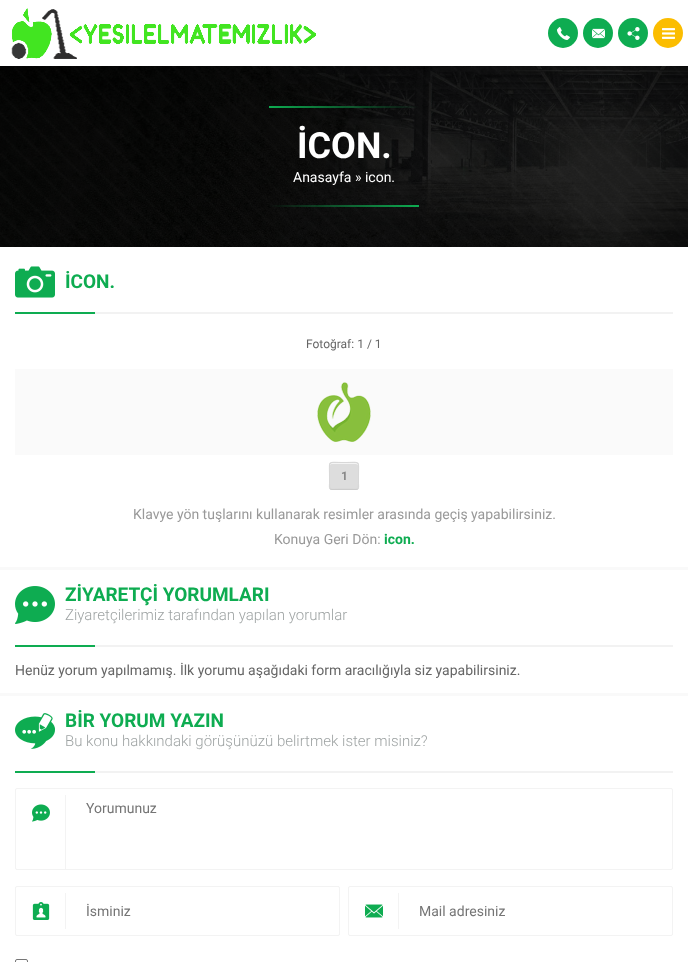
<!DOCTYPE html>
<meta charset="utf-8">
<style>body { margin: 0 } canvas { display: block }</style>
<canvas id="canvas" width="688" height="962"></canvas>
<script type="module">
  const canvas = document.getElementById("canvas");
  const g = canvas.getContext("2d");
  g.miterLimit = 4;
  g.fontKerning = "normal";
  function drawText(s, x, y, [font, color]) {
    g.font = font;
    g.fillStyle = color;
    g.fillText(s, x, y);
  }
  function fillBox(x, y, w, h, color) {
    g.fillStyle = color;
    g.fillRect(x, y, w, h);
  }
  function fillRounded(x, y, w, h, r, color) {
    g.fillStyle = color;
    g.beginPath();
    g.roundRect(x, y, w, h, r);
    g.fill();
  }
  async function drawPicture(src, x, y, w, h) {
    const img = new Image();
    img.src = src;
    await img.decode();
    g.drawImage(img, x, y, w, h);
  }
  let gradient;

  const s1 = ["bold 36px Roboto", "#FFFFFF"];
  const s2 = ["14px Roboto", "#FFFFFF"];
  const s3 = ["bold 19px Roboto", "#0EAC51"];
  const s4 = ["12px Roboto", "#666666"];
  const s5 = ["bold 12px Roboto", "#888888"];
  const s6 = ["14px Roboto", "#999999"];
  const s7 = ["bold 14px Roboto", "#0EAC51"];
  const s8 = ["300 15px Roboto", "#9FA4A4"];
  const s9 = ["14px Roboto", "#666666"];
  const s10 = ["14px Roboto", "#757575"];

  fillBox(0, 0, 688, 962, "#F9F9F9");
  fillBox(0, 0, 688, 66, "#FFFFFF");
  await drawPicture("pic1.png", 11, 8, 305, 51);
  g.fillStyle = "#0EAC51";
  g.beginPath();
  g.arc(563, 33, 15, 0, Math.PI * 2);
  g.fill();
  await drawPicture("pic2.png", 557, 27, 13, 13);
  g.beginPath();
  g.arc(598, 33, 15, 0, Math.PI * 2);
  g.fill();
  await drawPicture("pic3.png", 592, 28, 13, 11);
  g.beginPath();
  g.arc(633, 33, 15, 0, Math.PI * 2);
  g.fill();
  await drawPicture("pic4.png", 627, 27, 13, 13);
  g.fillStyle = "#FBBD00";
  g.beginPath();
  g.arc(668, 33, 15, 0, Math.PI * 2);
  g.fill();
  await drawPicture("pic5.png", 662, 28, 13, 11);
  await drawPicture("pic6.png", 0, 66, 688, 181);
  await drawPicture("pic7.png", 0, 66, 688, 181);
  gradient = g.createLinearGradient(269, 107, 419, 107);
  gradient.addColorStop(0, "#0EAC51");
  gradient.addColorStop(1, "rgba(14, 172, 81, 0)");
  g.fillStyle = gradient;
  g.fillRect(269, 106, 150, 2);
  drawText("İCON.", 297, 158, s1);
  drawText("Anasayfa » icon.", 293, 182, s2);
  gradient = g.createLinearGradient(269, 206, 419, 206);
  gradient.addColorStop(0, "rgba(14, 172, 81, 0)");
  gradient.addColorStop(1, "#0EAC51");
  g.fillStyle = gradient;
  g.fillRect(269, 205, 150, 2);
  fillBox(0, 247, 688, 320, "#FFFFFF");
  await drawPicture("pic8.png", 15, 266, 40, 32);
  drawText("İCON.", 65, 288, s3);
  fillBox(15, 312, 80, 2, "#0EAC51");
  fillBox(95, 312, 578, 2, "#F2F2F2");
  drawText("Fotoğraf: 1 / 1", 306, 348, s4);
  fillBox(15, 369, 658, 86, "#FAFAFA");
  await drawPicture("pic9.png", 317, 382, 54, 60);
  fillRounded(329, 462, 30, 28, 3, "#DDDDDD");
  g.fillStyle = "#D9D9D9";
  g.beginPath();
  g.moveTo(330, 479);
  g.lineTo(330, 487);
  g.bezierCurveTo(330, 488, 331, 489, 332, 489);
  g.lineTo(356, 489);
  g.bezierCurveTo(357, 489, 358, 488, 358, 487);
  g.lineTo(358, 479);
  g.bezierCurveTo(358, 484.5, 358, 487, 357, 488);
  g.bezierCurveTo(355.5, 489.5, 352, 488, 344, 488);
  g.bezierCurveTo(336, 488, 332.5, 489.5, 331, 488);
  g.bezierCurveTo(330, 487, 330, 484.5, 330, 479);
  g.closePath();
  g.fill();
  g.fillStyle = "#F4F4F4";
  g.beginPath();
  g.moveTo(332, 464);
  g.lineTo(356, 464);
  g.lineTo(358, 465);
  g.bezierCurveTo(358, 464, 357, 463, 356, 463);
  g.lineTo(332, 463);
  g.bezierCurveTo(331, 463, 330, 464, 330, 465);
  g.lineTo(330, 465.5);
  g.bezierCurveTo(330.5, 464.5, 331, 464, 332, 464);
  g.closePath();
  g.moveTo(358, 481);
  g.lineTo(358, 488);
  g.closePath();
  g.moveTo(330, 488);
  g.lineTo(330, 481);
  g.closePath();
  g.fill("evenodd");
  g.beginPath();
  g.moveTo(358, 489);
  g.bezierCurveTo(357.5, 489, 356.5, 489.5, 356, 489.5);
  g.lineTo(332, 489.5);
  g.bezierCurveTo(331.5, 489.5, 330.5, 489, 330, 489);
  g.strokeStyle = "#CCCCCC";
  g.stroke();
  g.beginPath();
  g.moveTo(330, 489);
  g.bezierCurveTo(329, 487.5, 329.5, 484.5, 329.5, 483.5);
  g.lineTo(329.5, 476);
  g.bezierCurveTo(329.5, 459.5, 327, 462.5, 344, 462.5);
  g.bezierCurveTo(361, 462.5, 358.5, 459.5, 358.5, 476);
  g.lineTo(358.5, 483.5);
  g.bezierCurveTo(358.5, 484.5, 359, 487.5, 358, 489);
  g.strokeStyle = "#D8D8D8";
  g.stroke();
  drawText("1", 341, 480, s5);
  drawText("Klavye yön tuşlarını kullanarak resimler arasında geçiş yapabilirsiniz.", 133, 519, s6);
  drawText("Konuya Geri Dön:", 274, 544, s6);
  drawText("icon.", 384, 544, s7);
  fillBox(0, 570, 688, 123, "#FFFFFF");
  await drawPicture("pic10.png", 15, 586, 40, 38);
  drawText("ZİYARETÇİ YORUMLARI", 65, 601, s3);
  drawText("Ziyaretçilerimiz tarafından yapılan yorumlar", 65, 620, s8);
  fillBox(15, 645, 80, 2, "#0EAC51");
  fillBox(95, 645, 578, 2, "#F2F2F2");
  drawText("Henüz yorum yapılmamış. İlk yorumu aşağıdaki form aracılığıyla siz yapabilirsiniz.", 15, 675, s9);
  fillBox(0, 696, 688, 266, "#FFFFFF");
  await drawPicture("pic11.png", 15, 713, 40, 36);
  drawText("BİR YORUM YAZIN", 65, 727, s3);
  drawText("Bu konu hakkındaki görüşünüzü belirtmek ister misiniz?", 65, 746, s8);
  fillBox(15, 771, 80, 2, "#0EAC51");
  fillBox(95, 771, 578, 2, "#F2F2F2");
  g.beginPath();
  g.roundRect(15.5, 788.5, 657, 81, 1.5);
  g.strokeStyle = "#F3F3F3";
  g.stroke();
  fillBox(65, 795, 1, 74, "#F3F3F3");
  await drawPicture("pic12.png", 32, 804, 18, 18);
  drawText("Yorumunuz", 86, 813, s10);
  g.beginPath();
  g.roundRect(15.5, 886.5, 324, 49, 1.5);
  g.stroke();
  fillBox(65, 893, 1, 36, "#F3F3F3");
  await drawPicture("pic13.png", 32, 902, 18, 18);
  drawText("İsminiz", 86, 916, s10);
  g.beginPath();
  g.roundRect(348.5, 886.5, 324, 49, 1.5);
  g.stroke();
  fillBox(398, 893, 1, 36, "#F3F3F3");
  await drawPicture("pic14.png", 365, 904, 18, 14);
  drawText("Mail adresiniz", 419, 916, s10);
  g.beginPath();
  g.roundRect(15.5, 959.5, 12, 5, 1.5);
  g.strokeStyle = "#767676";
  g.stroke();
</script>
